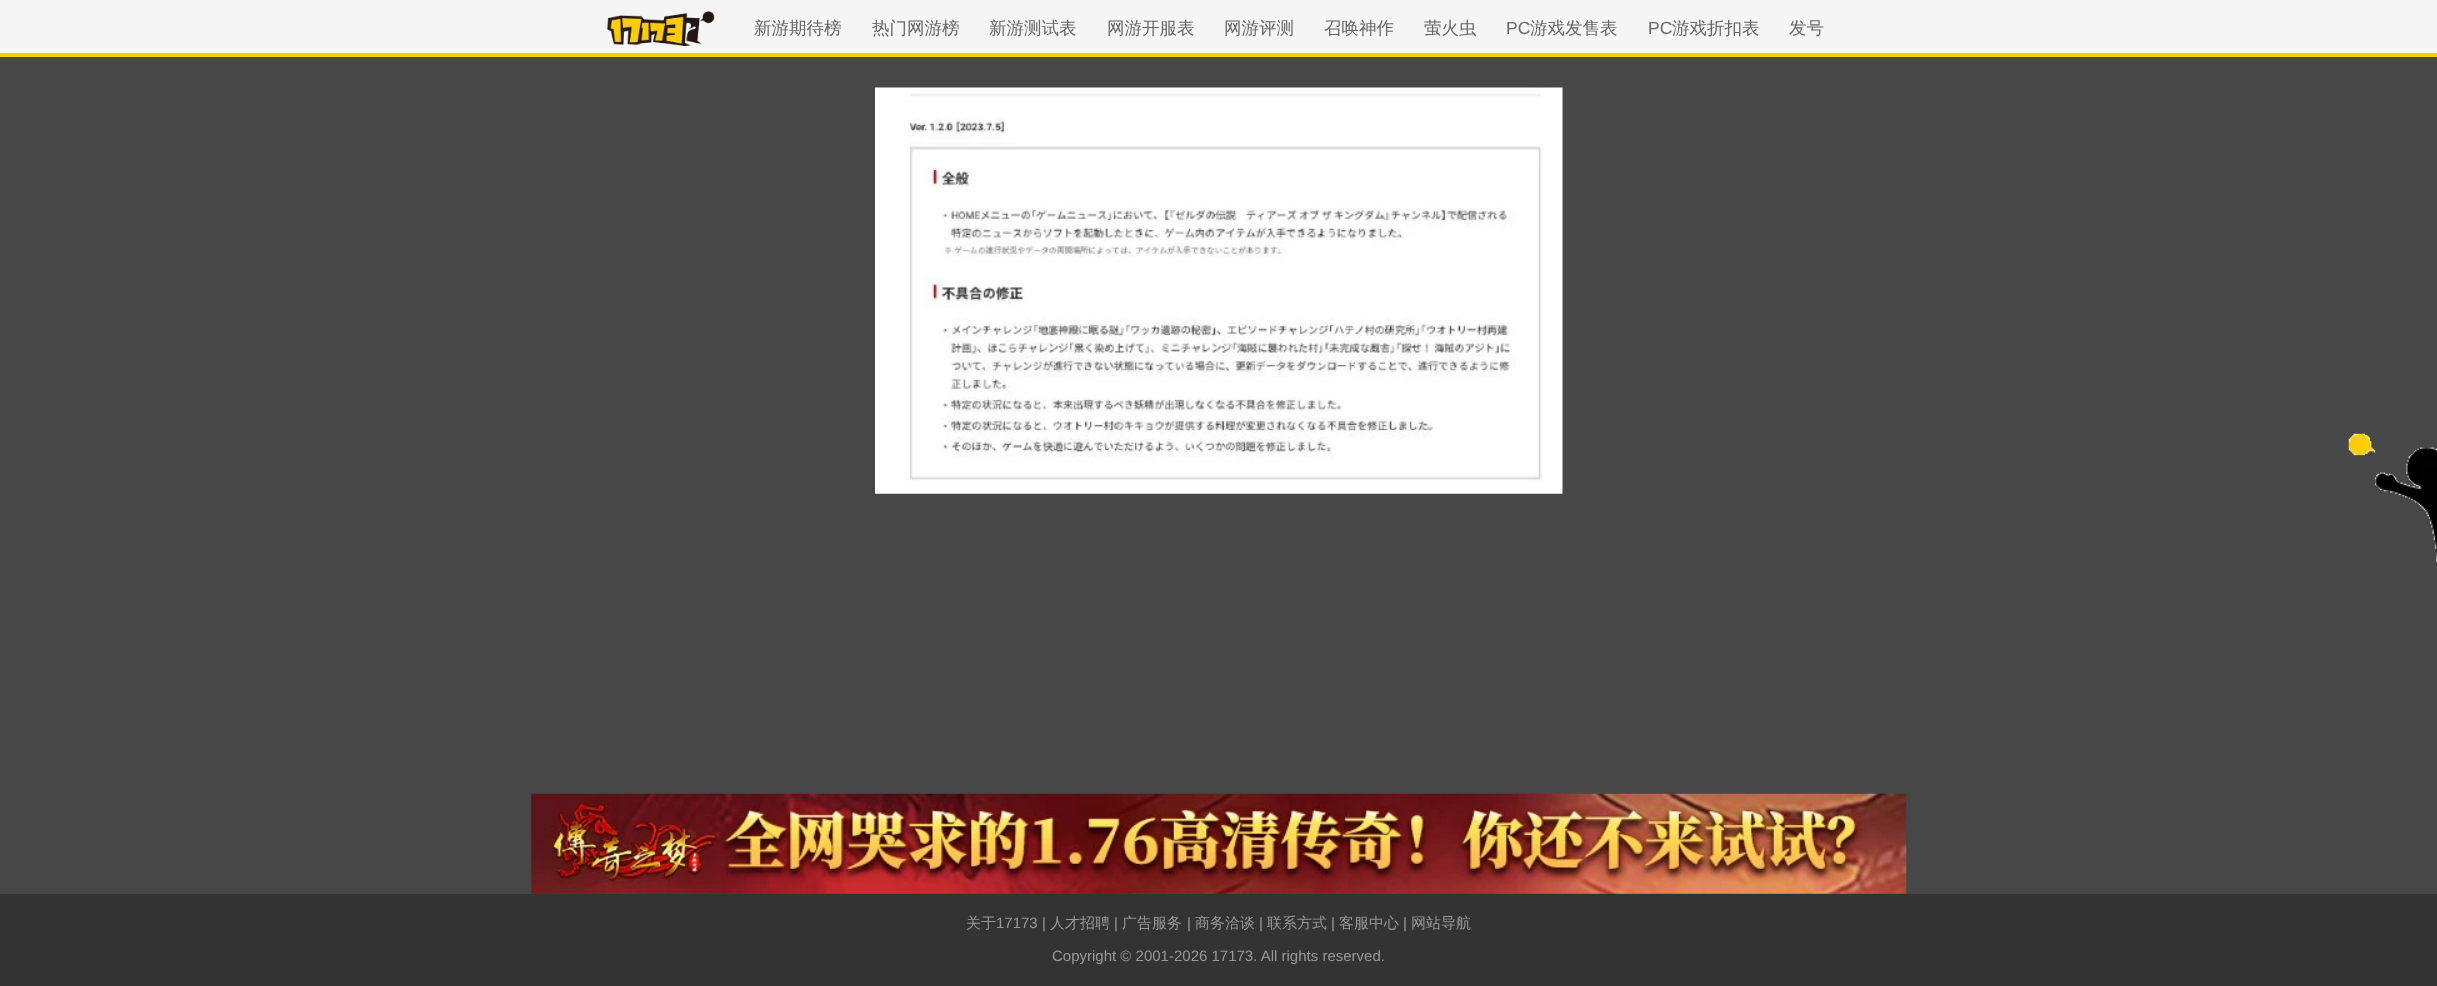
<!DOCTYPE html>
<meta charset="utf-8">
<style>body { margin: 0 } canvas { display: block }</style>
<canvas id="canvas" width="2437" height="986"></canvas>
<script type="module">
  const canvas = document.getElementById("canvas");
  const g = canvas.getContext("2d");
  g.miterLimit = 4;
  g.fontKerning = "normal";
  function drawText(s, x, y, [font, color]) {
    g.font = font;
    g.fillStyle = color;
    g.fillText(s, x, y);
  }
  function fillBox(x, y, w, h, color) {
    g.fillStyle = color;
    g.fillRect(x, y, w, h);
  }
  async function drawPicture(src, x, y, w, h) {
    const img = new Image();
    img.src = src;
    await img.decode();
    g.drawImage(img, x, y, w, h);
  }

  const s1 = ["500 17.5px WenQuanYi Zen Hei", "#666666"];
  const s2 = ["17.5px Liberation Sans", "#666666"];
  const s3 = ["500 15px WenQuanYi Zen Hei", "#999999"];
  const s4 = ["15px Liberation Sans", "#999999"];

  fillBox(0, 0, 2437, 986, "#474747");
  fillBox(0, 0, 2437, 53, "#F5F5F5");
  fillBox(0, 53, 2437, 4, "#FFCD00");
  await drawPicture("pic1.png", 607, 11, 108, 35);
  drawText("新游期待榜", 754, 34, s1);
  drawText("热门网游榜", 872, 34, s1);
  drawText("新游测试表", 989, 34, s1);
  drawText("网游开服表", 1107, 34, s1);
  drawText("网游评测", 1224, 34, s1);
  drawText("召唤神作", 1324, 34, s1);
  drawText("萤火虫", 1424, 34, s1);
  drawText("PC", 1506, 34, s2);
  drawText("游戏发售表", 1530, 34, s1);
  drawText("PC", 1648, 34, s2);
  drawText("游戏折扣表", 1672, 34, s1);
  drawText("发号", 1789, 34, s1);
  await drawPicture("pic2.png", 875, 87, 688, 407);
  await drawPicture("pic3.png", 531, 793, 1376, 101);
  await drawPicture("pic4.png", 2348, 433, 89, 129);
  fillBox(0, 894, 2437, 92, "#333333");
  drawText("关于", 966, 928, s3);
  drawText("17173 |", 996, 928, s4);
  drawText("人才招聘", 1050, 928, s3);
  drawText("|", 1114, 928, s4);
  drawText("广告服务", 1122, 928, s3);
  drawText("|", 1187, 928, s4);
  drawText("商务洽谈", 1195, 928, s3);
  drawText("|", 1259, 928, s4);
  drawText("联系方式", 1267, 928, s3);
  drawText("|", 1331, 928, s4);
  drawText("客服中心", 1339, 928, s3);
  drawText("|", 1403, 928, s4);
  drawText("网站导航", 1411, 928, s3);
  drawText("Copyright © 2001-2026 17173. All rights reserved.", 1052, 961, s4);
</script>
